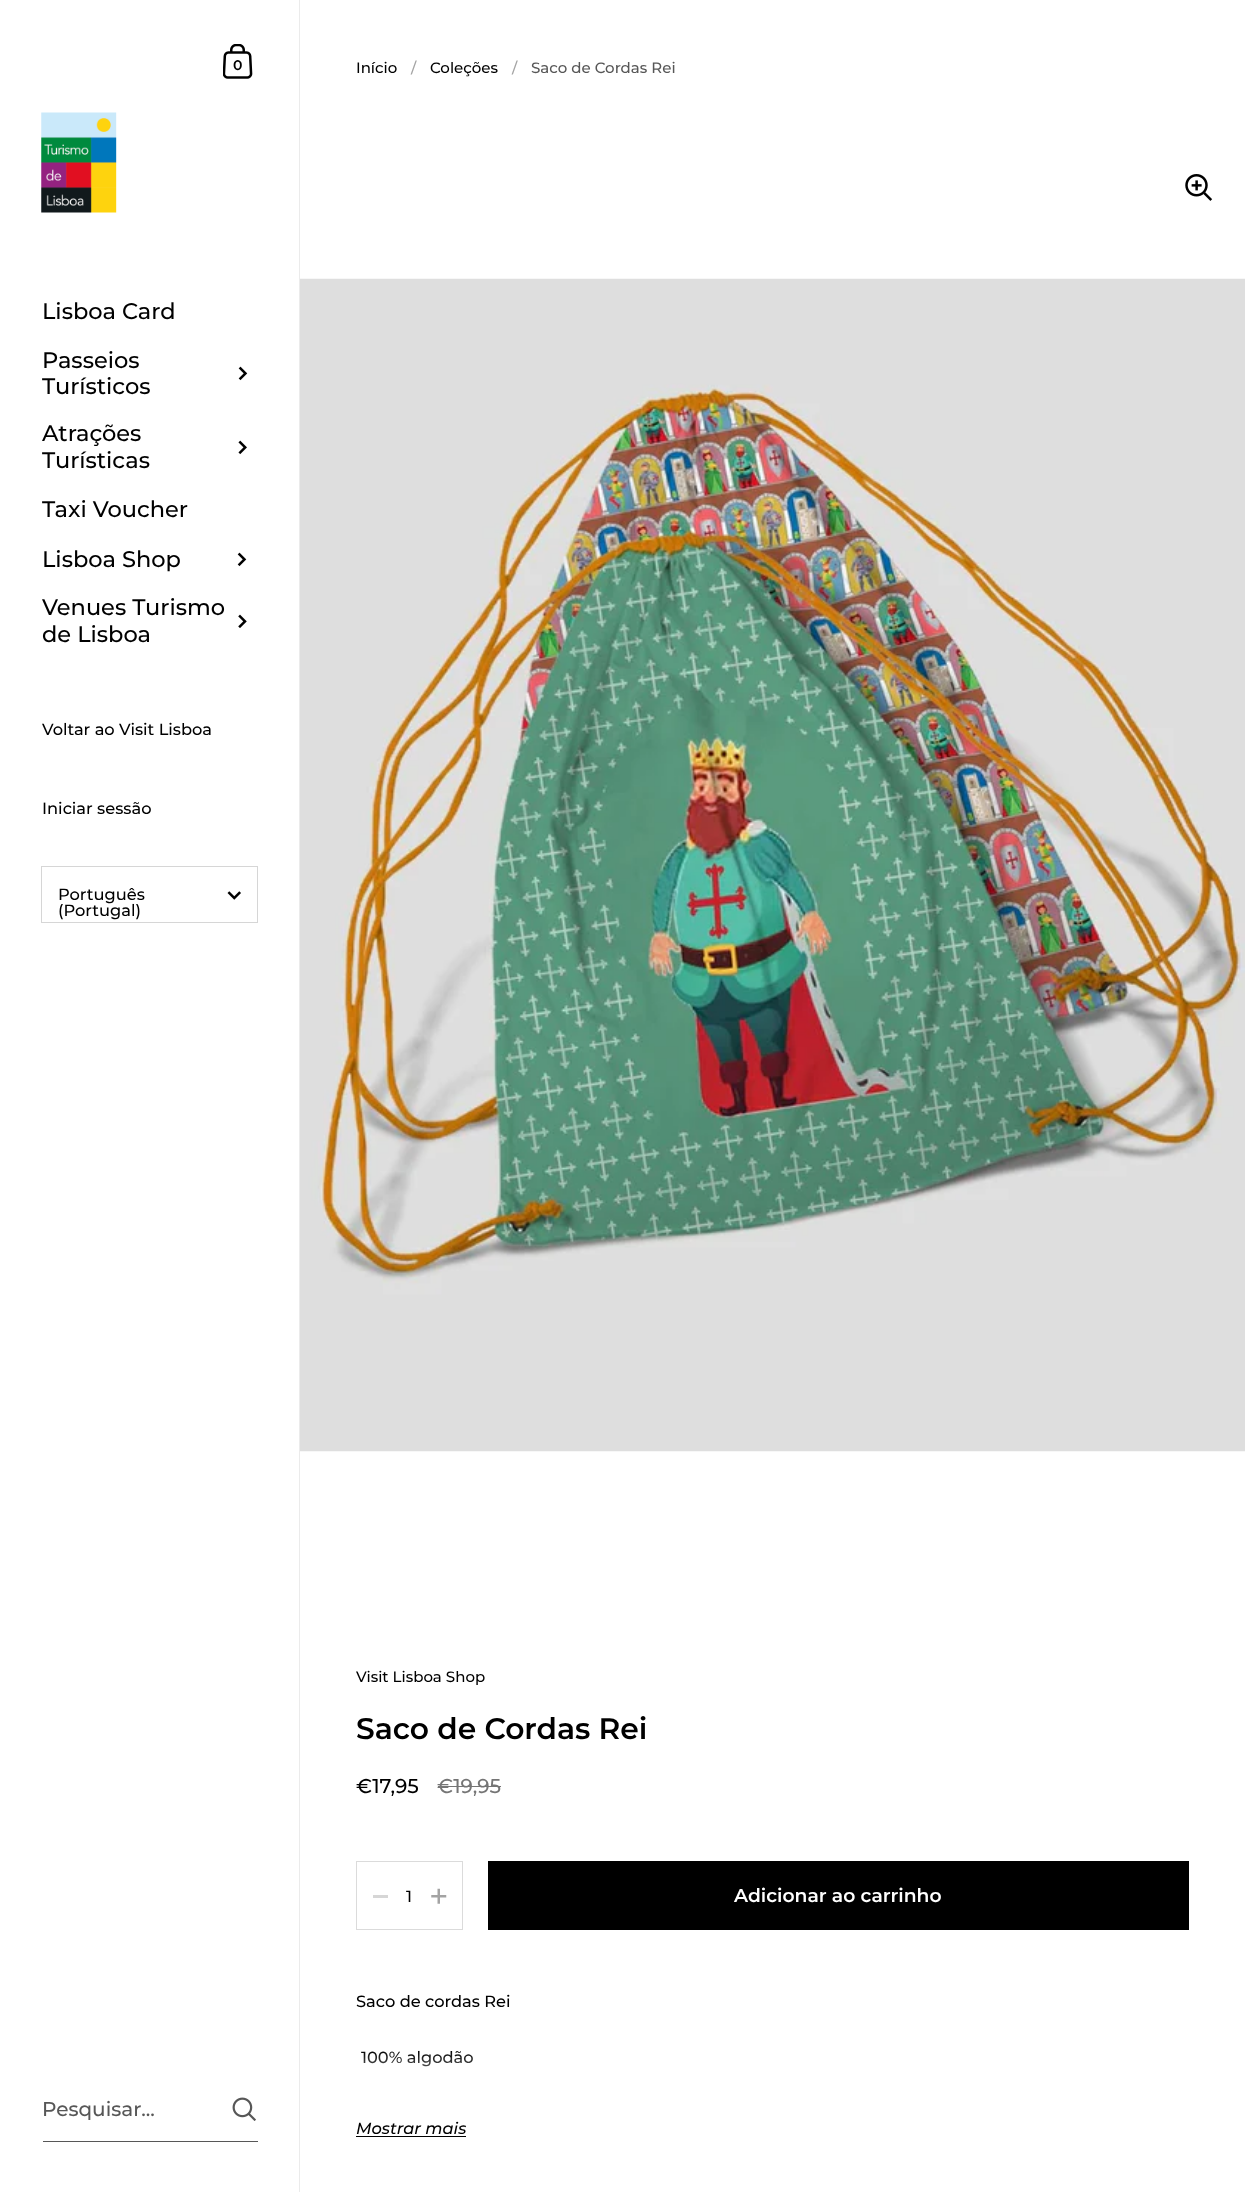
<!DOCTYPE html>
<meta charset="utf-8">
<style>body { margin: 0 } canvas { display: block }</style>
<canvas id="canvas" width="1245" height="2192"></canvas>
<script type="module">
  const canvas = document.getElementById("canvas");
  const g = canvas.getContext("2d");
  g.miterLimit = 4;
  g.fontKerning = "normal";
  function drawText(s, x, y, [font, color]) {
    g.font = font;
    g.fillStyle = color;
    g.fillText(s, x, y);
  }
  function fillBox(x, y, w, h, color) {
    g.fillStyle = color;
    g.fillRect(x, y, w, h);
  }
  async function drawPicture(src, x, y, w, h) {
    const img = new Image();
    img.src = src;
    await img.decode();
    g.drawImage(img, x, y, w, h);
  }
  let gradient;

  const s1 = ["600 14px Montserrat", "#000000"];
  const s2 = ["500 22.5px Montserrat", "#000000"];
  const s3 = ["500 16.25px Montserrat", "#000000"];
  const s4 = ["500 20px Montserrat", "#575757"];
  const s5 = ["500 15px Montserrat", "#000000"];
  const s6 = ["500 15px Montserrat", "#A3A3A3"];
  const s7 = ["500 15px Montserrat", "#575757"];
  const s8 = ["600 29.75px Montserrat", "#000000"];
  const s9 = ["500 20px Montserrat", "#000000"];
  const s10 = ["500 20px Montserrat", "#757575"];
  const s11 = ["600 18.75px Montserrat", "#FFFFFF"];
  const s12 = ["italic 500 16.25px Montserrat", "#000000"];

  fillBox(0, 0, 1245, 2192, "#FFFFFF");
  fillBox(299, 0, 1, 2192, "#EBEBEB");
  await drawPicture("pic1.png", 223, 44, 30, 35);
  drawText("0", 233, 70, s1);
  await drawPicture("pic2.png", 41, 112, 76, 101);
  drawText("Lisboa Card", 42, 319, s2);
  drawText("Passeios", 42, 368, s2);
  drawText("Turísticos", 42, 394, s2);
  await drawPicture("pic3.png", 238, 366, 10, 15);
  drawText("Atrações", 42, 441, s2);
  drawText("Turísticas", 42, 468, s2);
  await drawPicture("pic4.png", 238, 440, 9, 15);
  drawText("Taxi Voucher", 42, 517, s2);
  drawText("Lisboa Shop", 42, 567, s2);
  await drawPicture("pic5.png", 237, 552, 10, 15);
  drawText("Venues Turismo", 42, 615, s2);
  drawText("de Lisboa", 42, 642, s2);
  await drawPicture("pic6.png", 238, 614, 9, 14);
  drawText("Voltar ao Visit Lisboa", 42, 735, s3);
  drawText("Iniciar sessão", 42, 814, s3);
  await drawPicture("pic7.png", 227, 891, 14, 9);
  g.strokeStyle = "#D6D6D6";
  g.strokeRect(41.5, 866.5, 216, 56);
  drawText("Português", 58, 900, s3);
  drawText("(Portugal)", 58, 916, s3);
  fillBox(43, 2141, 215, 1, "#575757");
  drawText("Pesquisar...", 42, 2116, s4);
  await drawPicture("pic8.png", 232, 2097, 24, 24);
  drawText("Início", 356, 73, s5);
  drawText("/", 411, 73, s6);
  drawText("Coleções", 430, 73, s5);
  drawText("/", 512, 73, s6);
  drawText("Saco de Cordas Rei", 531, 73, s7);
  await drawPicture("pic9.png", 1185, 174, 28, 27);
  await drawPicture("pic10.png", 300, 278, 945, 1174);
  drawText("Visit Lisboa Shop", 356, 1682, s5);
  drawText("Saco de Cordas Rei", 356, 1739, s8);
  drawText("€17,95", 356, 1793, s9);
  drawText("€19,95", 437, 1793, s10);
  fillBox(438, 1786, 63, 1, "#757575");
  g.strokeStyle = "#DBDBDB";
  g.strokeRect(356.5, 1861.5, 106, 68);
  fillBox(373, 1895, 15, 3, "#D6D6D6");
  drawText("1", 406, 1902, s3);
  await drawPicture("pic11.png", 431, 1888, 16, 16);
  fillBox(488, 1861, 701, 69, "#000000");
  drawText("Adicionar ao carrinho", 734, 1902, s11);
  drawText("Saco de cordas Rei", 356, 2007, s3);
  drawText("100% algodão", 361, 2063, s3);
  gradient = g.createLinearGradient(773, 2113, 773, 2050);
  gradient.addColorStop(0, "#FFFFFF");
  gradient.addColorStop(0.1, "#FFFFFF");
  gradient.addColorStop(1, "rgba(255, 255, 255, 0)");
  g.fillStyle = gradient;
  g.fillRect(360, 2051, 113, 16);
  fillBox(356, 2136, 110, 1, "#000000");
  drawText("Mostrar mais", 356, 2134, s12);
</script>
